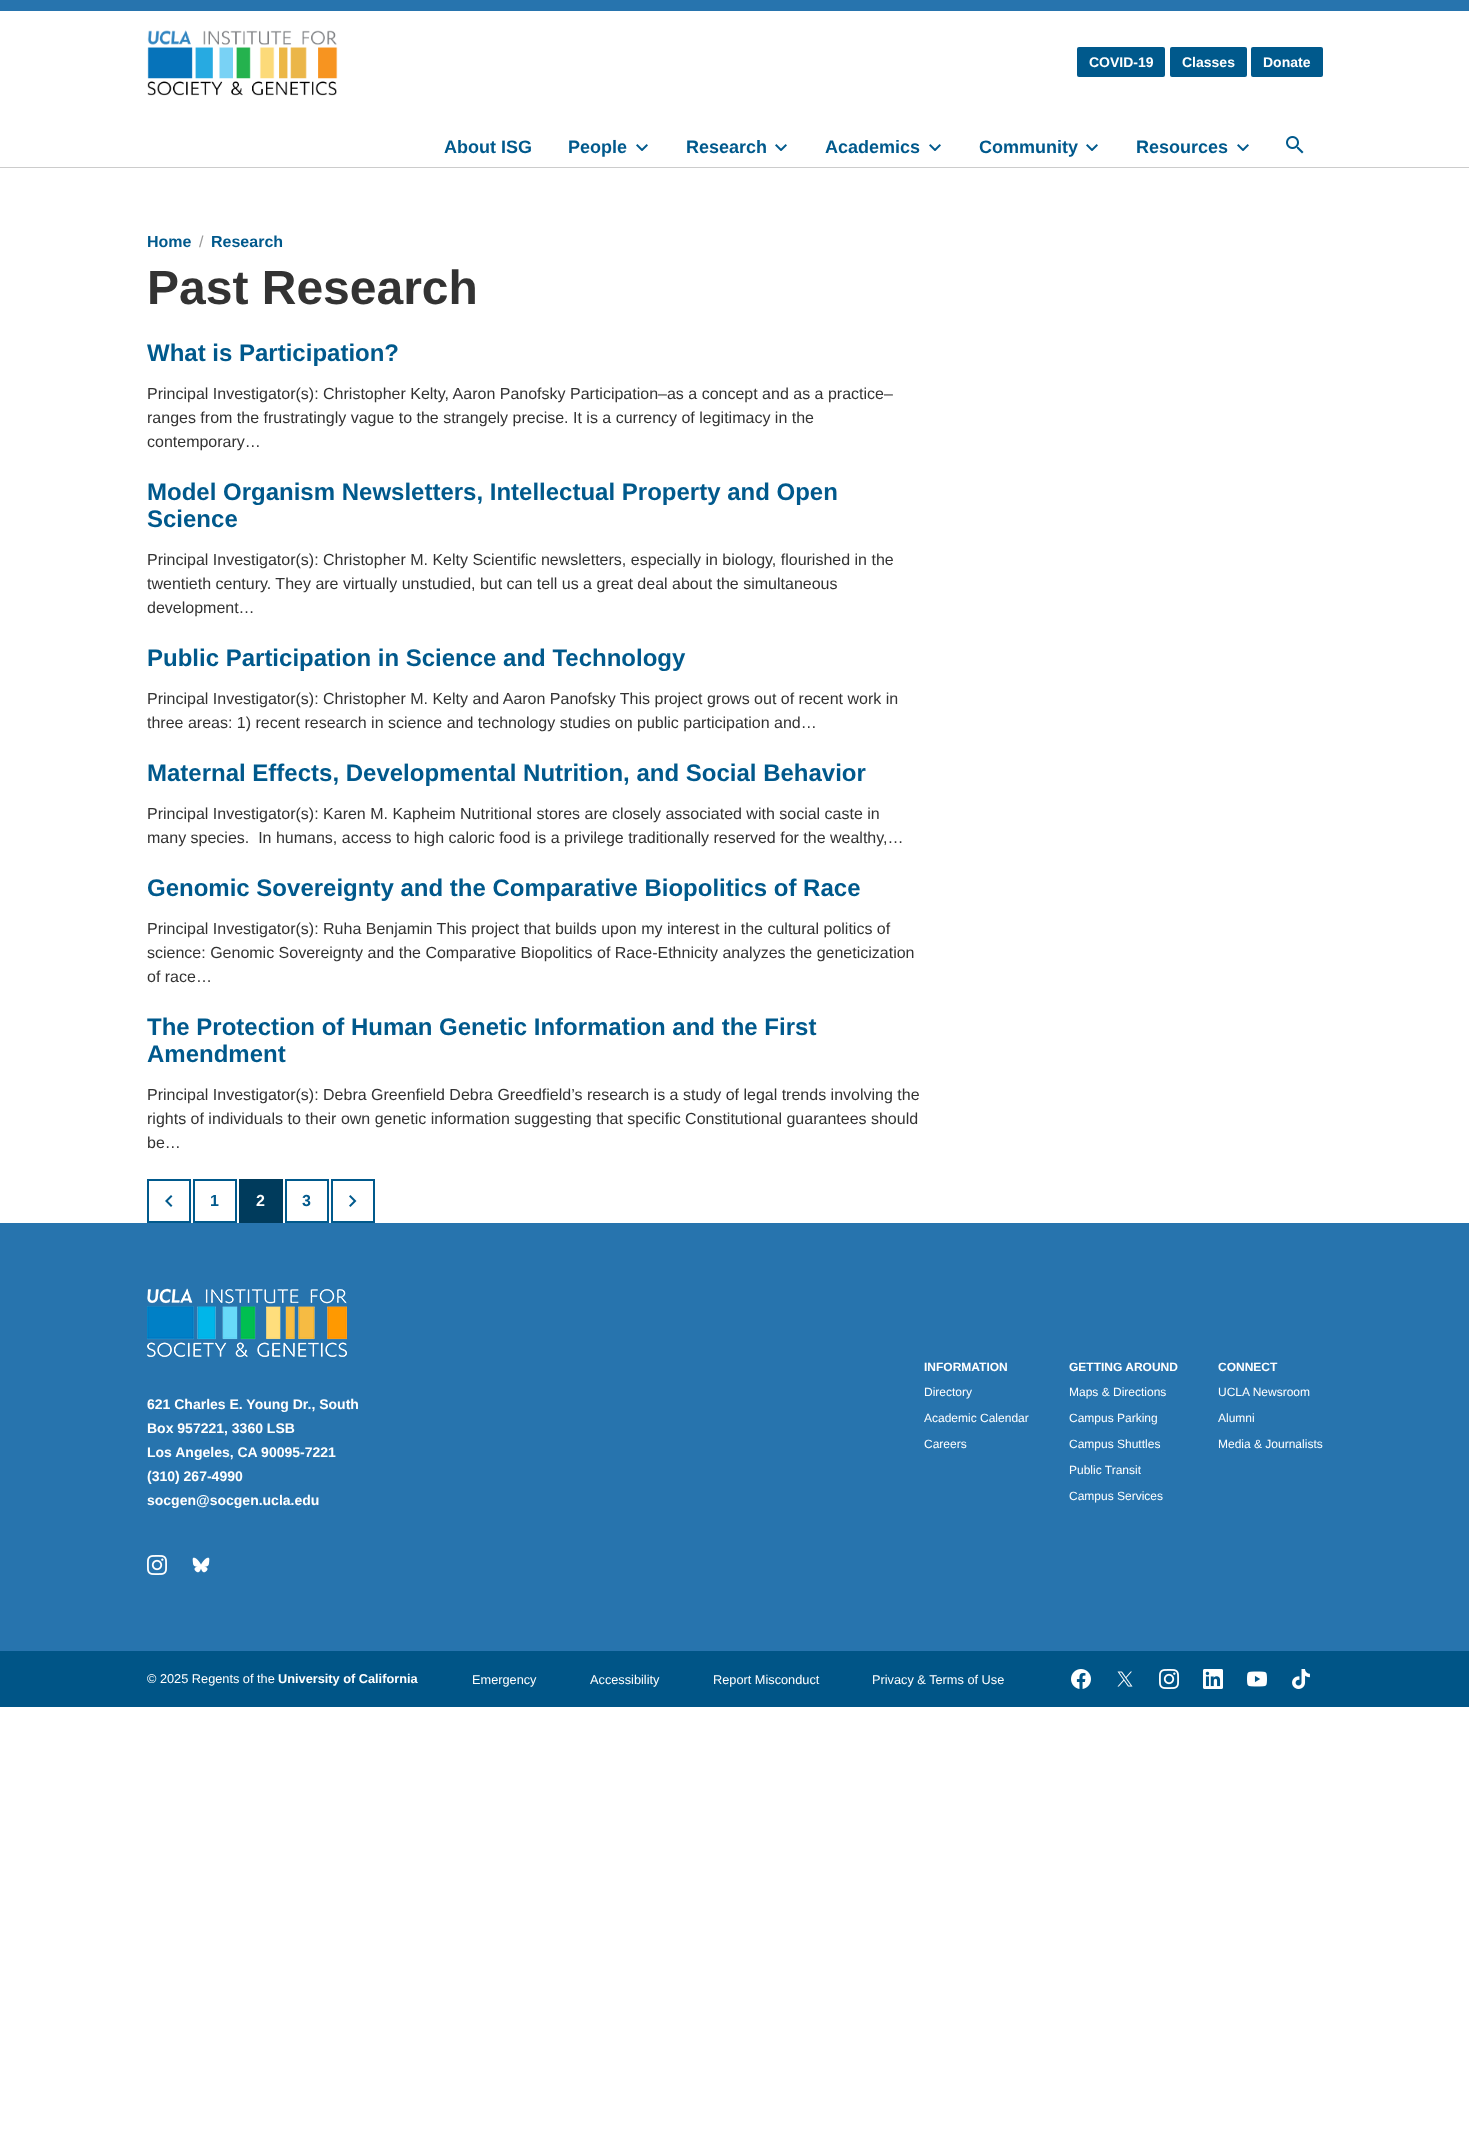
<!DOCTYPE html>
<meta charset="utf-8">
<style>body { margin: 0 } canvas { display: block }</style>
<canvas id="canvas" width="1469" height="2133"></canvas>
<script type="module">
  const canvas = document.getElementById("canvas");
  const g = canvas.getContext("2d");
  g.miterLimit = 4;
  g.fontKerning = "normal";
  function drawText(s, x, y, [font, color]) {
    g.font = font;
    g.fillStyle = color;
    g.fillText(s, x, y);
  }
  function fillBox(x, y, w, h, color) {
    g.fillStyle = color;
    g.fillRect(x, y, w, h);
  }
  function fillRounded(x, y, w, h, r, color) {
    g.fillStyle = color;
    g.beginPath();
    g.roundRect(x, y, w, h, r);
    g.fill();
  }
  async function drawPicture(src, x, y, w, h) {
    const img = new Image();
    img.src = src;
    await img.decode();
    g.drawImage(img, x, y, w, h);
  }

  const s1 = ["bold 14px Liberation Sans", "#FFFFFF"];
  const s2 = ["bold 18px Liberation Sans", "#00598C"];
  const s3 = ["bold 16px Liberation Sans", "#00598C"];
  const s4 = ["16px Liberation Sans", "#999999"];
  const s5 = ["bold 48px Liberation Sans", "#333333"];
  const s6 = ["bold 24px Liberation Sans", "#00598C"];
  const s7 = ["16px Liberation Sans", "#333333"];
  const s8 = ["bold 16px Liberation Sans", "#FFFFFF"];
  const s9 = ["bold 12px Liberation Sans", "#FFFFFF"];
  const s10 = ["12px Liberation Sans", "#FFFFFF"];
  const s11 = ["12.75px Liberation Sans", "#FFFFFF"];
  const s12 = ["bold 12.75px Liberation Sans", "#FFFFFF"];

  fillBox(0, 0, 1469, 2133, "#FFFFFF");
  fillBox(0, 0, 1469, 11, "#2774AE");
  fillBox(0, 167, 1469, 1, "#CCCCCC");
  await drawPicture("pic1.png", 147, 30, 191, 66);
  fillRounded(1077, 47, 88, 30, 2, "#00598C");
  drawText("COVID-19", 1089, 67, s1);
  fillRounded(1170, 47, 77, 30, 2, "#00598C");
  drawText("Classes", 1182, 67, s1);
  fillRounded(1251, 47, 72, 30, 2, "#00598C");
  drawText("Donate", 1263, 67, s1);
  drawText("About ISG", 444, 153, s2);
  drawText("People", 568, 153, s2);
  await drawPicture("pic2.png", 636, 144, 12, 7);
  drawText("Research", 686, 153, s2);
  await drawPicture("pic2.png", 775, 144, 12, 7);
  drawText("Academics", 825, 153, s2);
  await drawPicture("pic2.png", 929, 144, 12, 7);
  drawText("Community", 979, 153, s2);
  await drawPicture("pic2.png", 1086, 144, 12, 7);
  drawText("Resources", 1136, 153, s2);
  await drawPicture("pic2.png", 1237, 144, 12, 7);
  await drawPicture("pic3.png", 1286, 136, 18, 18);
  drawText("Home", 147, 247, s3);
  drawText("/", 199, 247, s4);
  drawText("Research", 211, 247, s3);
  drawText("Past Research", 147, 304, s5);
  drawText("What is Participation?", 147, 361, s6);
  drawText("Principal Investigator(s): Christopher Kelty, Aaron Panofsky Participation–as a concept and as a practice–", 147, 399, s7);
  drawText("ranges from the frustratingly vague to the strangely precise. It is a currency of legitimacy in the", 147, 423, s7);
  drawText("contemporary…", 147, 447, s7);
  drawText("Model Organism Newsletters, Intellectual Property and Open", 147, 500, s6);
  drawText("Science", 147, 527, s6);
  drawText("Principal Investigator(s): Christopher M. Kelty Scientific newsletters, especially in biology, flourished in the", 147, 565, s7);
  drawText("twentieth century. They are virtually unstudied, but can tell us a great deal about the simultaneous", 147, 589, s7);
  drawText("development…", 147, 613, s7);
  drawText("Public Participation in Science and Technology", 147, 666, s6);
  drawText("Principal Investigator(s): Christopher M. Kelty and Aaron Panofsky This project grows out of recent work in", 147, 704, s7);
  drawText("three areas: 1) recent research in science and technology studies on public participation and…", 147, 728, s7);
  drawText("Maternal Effects, Developmental Nutrition, and Social Behavior", 147, 781, s6);
  drawText("Principal Investigator(s): Karen M. Kapheim Nutritional stores are closely associated with social caste in", 147, 819, s7);
  drawText("many species.  In humans, access to high caloric food is a privilege traditionally reserved for the wealthy,…", 147, 843, s7);
  drawText("Genomic Sovereignty and the Comparative Biopolitics of Race", 147, 896, s6);
  drawText("Principal Investigator(s): Ruha Benjamin This project that builds upon my interest in the cultural politics of", 147, 934, s7);
  drawText("science: Genomic Sovereignty and the Comparative Biopolitics of Race-Ethnicity analyzes the geneticization", 147, 958, s7);
  drawText("of race…", 147, 982, s7);
  drawText("The Protection of Human Genetic Information and the First", 147, 1035, s6);
  drawText("Amendment", 147, 1062, s6);
  drawText("Principal Investigator(s): Debra Greenfield Debra Greedfield’s research is a study of legal trends involving the", 147, 1100, s7);
  drawText("rights of individuals to their own genetic information suggesting that specific Constitutional guarantees should", 147, 1124, s7);
  drawText("be…", 147, 1148, s7);
  g.strokeStyle = "#00598C";
  g.lineWidth = 2;
  g.strokeRect(148, 1180, 42, 42);
  await drawPicture("pic4.png", 165, 1195, 8, 12);
  g.strokeRect(194, 1180, 42, 42);
  drawText("1", 210, 1206, s3);
  fillBox(239, 1179, 44, 44, "#003B5C");
  drawText("2", 256, 1206, s8);
  g.strokeRect(286, 1180, 42, 42);
  drawText("3", 302, 1206, s3);
  g.strokeRect(332, 1180, 42, 42);
  await drawPicture("pic5.png", 349, 1195, 8, 12);
  fillBox(0, 1223, 1469, 428, "#2774AE");
  await drawPicture("pic6.png", 147, 1288, 200, 69);
  drawText("621 Charles E. Young Dr., South", 147, 1409, s1);
  drawText("Box 957221, 3360 LSB", 147, 1433, s1);
  drawText("Los Angeles, CA 90095-7221", 147, 1457, s1);
  drawText("(310) 267-4990", 147, 1481, s1);
  drawText("socgen@socgen.ucla.edu", 147, 1505, s1);
  await drawPicture("pic7.png", 147, 1555, 20, 20);
  await drawPicture("pic8.png", 192, 1557, 18, 16);
  drawText("INFORMATION", 924, 1371, s9);
  drawText("Directory", 924, 1396, s10);
  drawText("Academic Calendar", 924, 1422, s10);
  drawText("Careers", 924, 1448, s10);
  drawText("GETTING AROUND", 1069, 1371, s9);
  drawText("Maps & Directions", 1069, 1396, s10);
  drawText("Campus Parking", 1069, 1422, s10);
  drawText("Campus Shuttles", 1069, 1448, s10);
  drawText("Public Transit", 1069, 1474, s10);
  drawText("Campus Services", 1069, 1500, s10);
  drawText("CONNECT", 1218, 1371, s9);
  drawText("UCLA Newsroom", 1218, 1396, s10);
  drawText("Alumni", 1218, 1422, s10);
  drawText("Media & Journalists", 1218, 1448, s10);
  fillBox(0, 1651, 1469, 56, "#005587");
  drawText("© 2025 Regents of the", 147, 1683, s11);
  drawText("University of California", 278, 1683, s12);
  drawText("Emergency", 472, 1684, s11);
  drawText("Accessibility", 590, 1684, s11);
  drawText("Report Misconduct", 713, 1684, s11);
  drawText("Privacy & Terms of Use", 872, 1684, s11);
  await drawPicture("pic9.png", 1071, 1669, 20, 20);
  await drawPicture("pic10.png", 1117, 1671, 16, 16);
  await drawPicture("pic11.png", 1159, 1669, 20, 20);
  await drawPicture("pic12.png", 1203, 1669, 20, 20);
  await drawPicture("pic13.png", 1247, 1671, 20, 16);
  await drawPicture("pic14.png", 1292, 1669, 18, 20);
</script>
